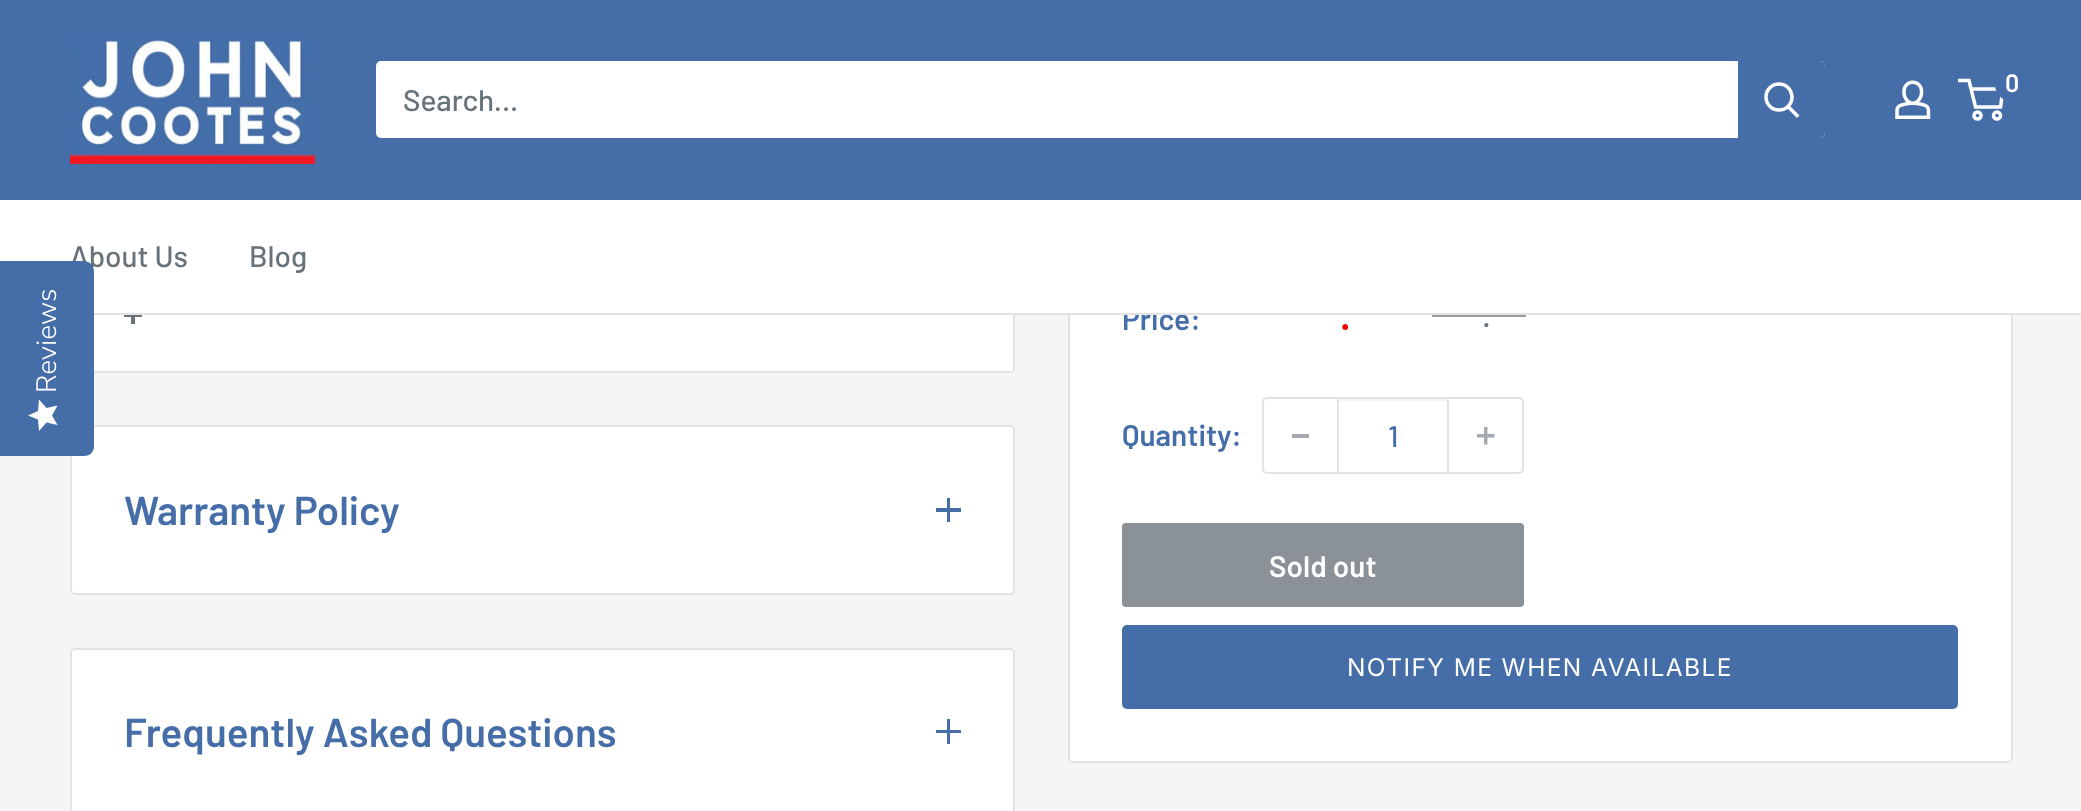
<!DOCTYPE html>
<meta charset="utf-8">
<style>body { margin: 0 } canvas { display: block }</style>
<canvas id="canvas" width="2081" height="811"></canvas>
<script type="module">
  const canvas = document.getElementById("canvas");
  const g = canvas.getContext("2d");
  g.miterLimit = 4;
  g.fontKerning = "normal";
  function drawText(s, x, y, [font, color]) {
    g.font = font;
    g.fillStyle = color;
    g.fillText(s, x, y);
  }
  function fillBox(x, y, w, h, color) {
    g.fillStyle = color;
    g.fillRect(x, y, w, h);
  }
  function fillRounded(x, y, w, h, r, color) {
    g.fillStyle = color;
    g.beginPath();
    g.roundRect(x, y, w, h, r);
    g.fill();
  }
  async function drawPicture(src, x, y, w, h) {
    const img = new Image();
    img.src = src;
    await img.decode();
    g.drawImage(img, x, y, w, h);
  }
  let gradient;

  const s1 = ["600 25px Barlow", "#FFFFFF"];
  const s2 = ["500 29.75px Barlow", "#677279"];
  const s3 = ["600 29.75px Barlow", "#456EA8"];
  const s4 = ["600 40.25px Barlow", "#456EA8"];
  const s5 = ["500 46px Barlow", "#EE0000"];
  const s6 = ["500 32px Barlow", "#677279"];
  const s7 = ["500 29.75px Barlow", "#456EA8"];
  const s8 = ["600 29.75px Barlow", "#FFFFFF"];
  const s9 = ["24.5px Inter", "#FFFFFF"];

  fillBox(0, 0, 2081, 811, "#F3F5F6");
  g.beginPath();
  g.roundRect(71, -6, 943, 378, 4);
  g.strokeStyle = "#E1E3E4";
  g.lineWidth = 2;
  g.stroke();
  g.fillStyle = "#FFFFFF";
  g.beginPath();
  g.roundRect(1069, -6, 943, 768, 4);
  g.fill();
  g.stroke();
  fillBox(0, 0, 2081, 200, "#456EA8");
  await drawPicture("pic1.png", 70, 35, 245, 129);
  await drawPicture("pic2.png", 1895, 80, 36, 39);
  g.beginPath();
  g.arc(1977.5, 115.5, 3.5, 0, Math.PI * 2);
  g.strokeStyle = "#FFFFFF";
  g.lineWidth = 3.5;
  g.stroke();
  g.beginPath();
  g.arc(1997, 115.5, 3.5, 0, Math.PI * 2);
  g.stroke();
  g.beginPath();
  g.moveTo(1971, 89);
  g.lineTo(2003, 89);
  g.lineTo(2000.5, 107);
  g.lineTo(1975.5, 107);
  g.lineTo(1969, 80.5);
  g.lineTo(1958, 80.5);
  g.stroke();
  g.beginPath();
  g.arc(2012.5, 84.5, 17.5, 0, Math.PI * 2);
  g.fill();
  drawText("0", 2005, 92, s1);
  fillRounded(376, 61, 1449, 77, 5, "#FFFFFF");
  drawText("Search...", 403, 111, s2);
  g.fillStyle = "#456EA8";
  g.beginPath();
  g.roundRect(1738, 61, 87, 77, [0, 5, 5, 0]);
  g.fill();
  g.beginPath();
  g.moveTo(1797, 115.5);
  g.lineTo(1788.5, 107);
  g.lineCap = "square";
  g.stroke();
  g.beginPath();
  g.arc(1779, 97, 13, 0, Math.PI * 2);
  g.stroke();
  drawText("Price:", 1122, 330, s3);
  fillBox(0, 200, 2081, 113, "#FFFFFF");
  fillBox(94, 313, 1987, 2, "#E1E3E4");
  drawText("About Us", 70, 267, s2);
  drawText("Blog", 249, 267, s2);
  g.fillStyle = "#FFFFFF";
  g.beginPath();
  g.roundRect(71, 426, 943, 168, 4);
  g.fill();
  g.strokeStyle = "#E1E3E4";
  g.lineWidth = 2;
  g.stroke();
  g.fillStyle = "#456EA8";
  g.beginPath();
  g.moveTo(0, 456);
  g.lineTo(0, 261);
  g.lineTo(84, 261);
  g.bezierCurveTo(90, 261, 94, 266, 94, 272);
  g.lineTo(94, 446);
  g.bezierCurveTo(94, 452, 90, 456, 84, 456);
  g.closePath();
  g.fill();
  g.font = "300 28px Nunito Sans";
  g.fillStyle = "#FFFFFF";
  g.save();
  g.translate(56, 393);
  g.rotate(-90 * Math.PI / 180);
  g.fillText("Reviews", 0, 0);
  g.restore();
  gradient = g.createLinearGradient(28, 431, 28, 400);
  gradient.addColorStop(1, "#FEFEFE");
  gradient.addColorStop(1, "#EAEAEA");
  g.fillStyle = gradient;
  g.beginPath();
  g.moveTo(52, 415.5);
  g.lineTo(57.5, 405.5);
  g.lineTo(46.5, 408);
  g.lineTo(39, 399.5);
  g.lineTo(38, 411);
  g.lineTo(28, 415.5);
  g.lineTo(38, 419.5);
  g.lineTo(39, 431);
  g.lineTo(46.5, 422.5);
  g.lineTo(57.5, 425);
  g.closePath();
  g.fill();
  fillBox(94, 315, 919, 56, "#FFFFFF");
  fillBox(124, 315, 18, 2, "#677279");
  fillBox(131, 317, 4, 7, "#677279");
  drawText("Warranty Policy", 124, 525, s4);
  fillBox(947, 498, 3, 24, "#456EA8");
  fillBox(936, 508, 25, 4, "#456EA8");
  drawText(".", 1339, 330, s5);
  drawText(".", 1482, 327, s6);
  fillBox(1432, 315, 94, 2, "rgba(103, 114, 121, 0.7)");
  drawText("Quantity:", 1122, 446, s3);
  g.beginPath();
  g.roundRect(1263, 398, 260, 75, 4);
  g.stroke();
  fillBox(1292, 434, 17, 4, "#A4AAAF");
  fillBox(1339, 399, 108, 2, "#F3F4F4");
  fillBox(1447, 399, 2, 74, "#E1E3E4");
  fillBox(1337, 399, 2, 74, "#E1E3E4");
  drawText("1", 1388, 447, s7);
  await drawPicture("pic3.png", 1477, 427, 18, 18);
  g.fillStyle = "#8A9297";
  g.beginPath();
  g.roundRect(1123, 524, 400, 82, 3);
  g.fill();
  g.strokeStyle = "#8A9297";
  g.stroke();
  drawText("Sold out", 1269, 577, s8);
  fillRounded(1122, 625, 836, 84, 5, "#456EA8");
  g.letterSpacing = "1.4px";
  drawText("NOTIFY ME WHEN AVAILABLE", 1347, 676, s9);
  g.beginPath();
  g.roundRect(71, 649, 943, 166, 4);
  g.fill();
  g.strokeStyle = "#E1E3E4";
  g.stroke();
  g.letterSpacing = "0px";
  drawText("Frequently Asked Questions", 124, 747, s4);
  fillBox(947, 719, 3, 25, "#456EA8");
  fillBox(936, 730, 25, 3, "#456EA8");
</script>
